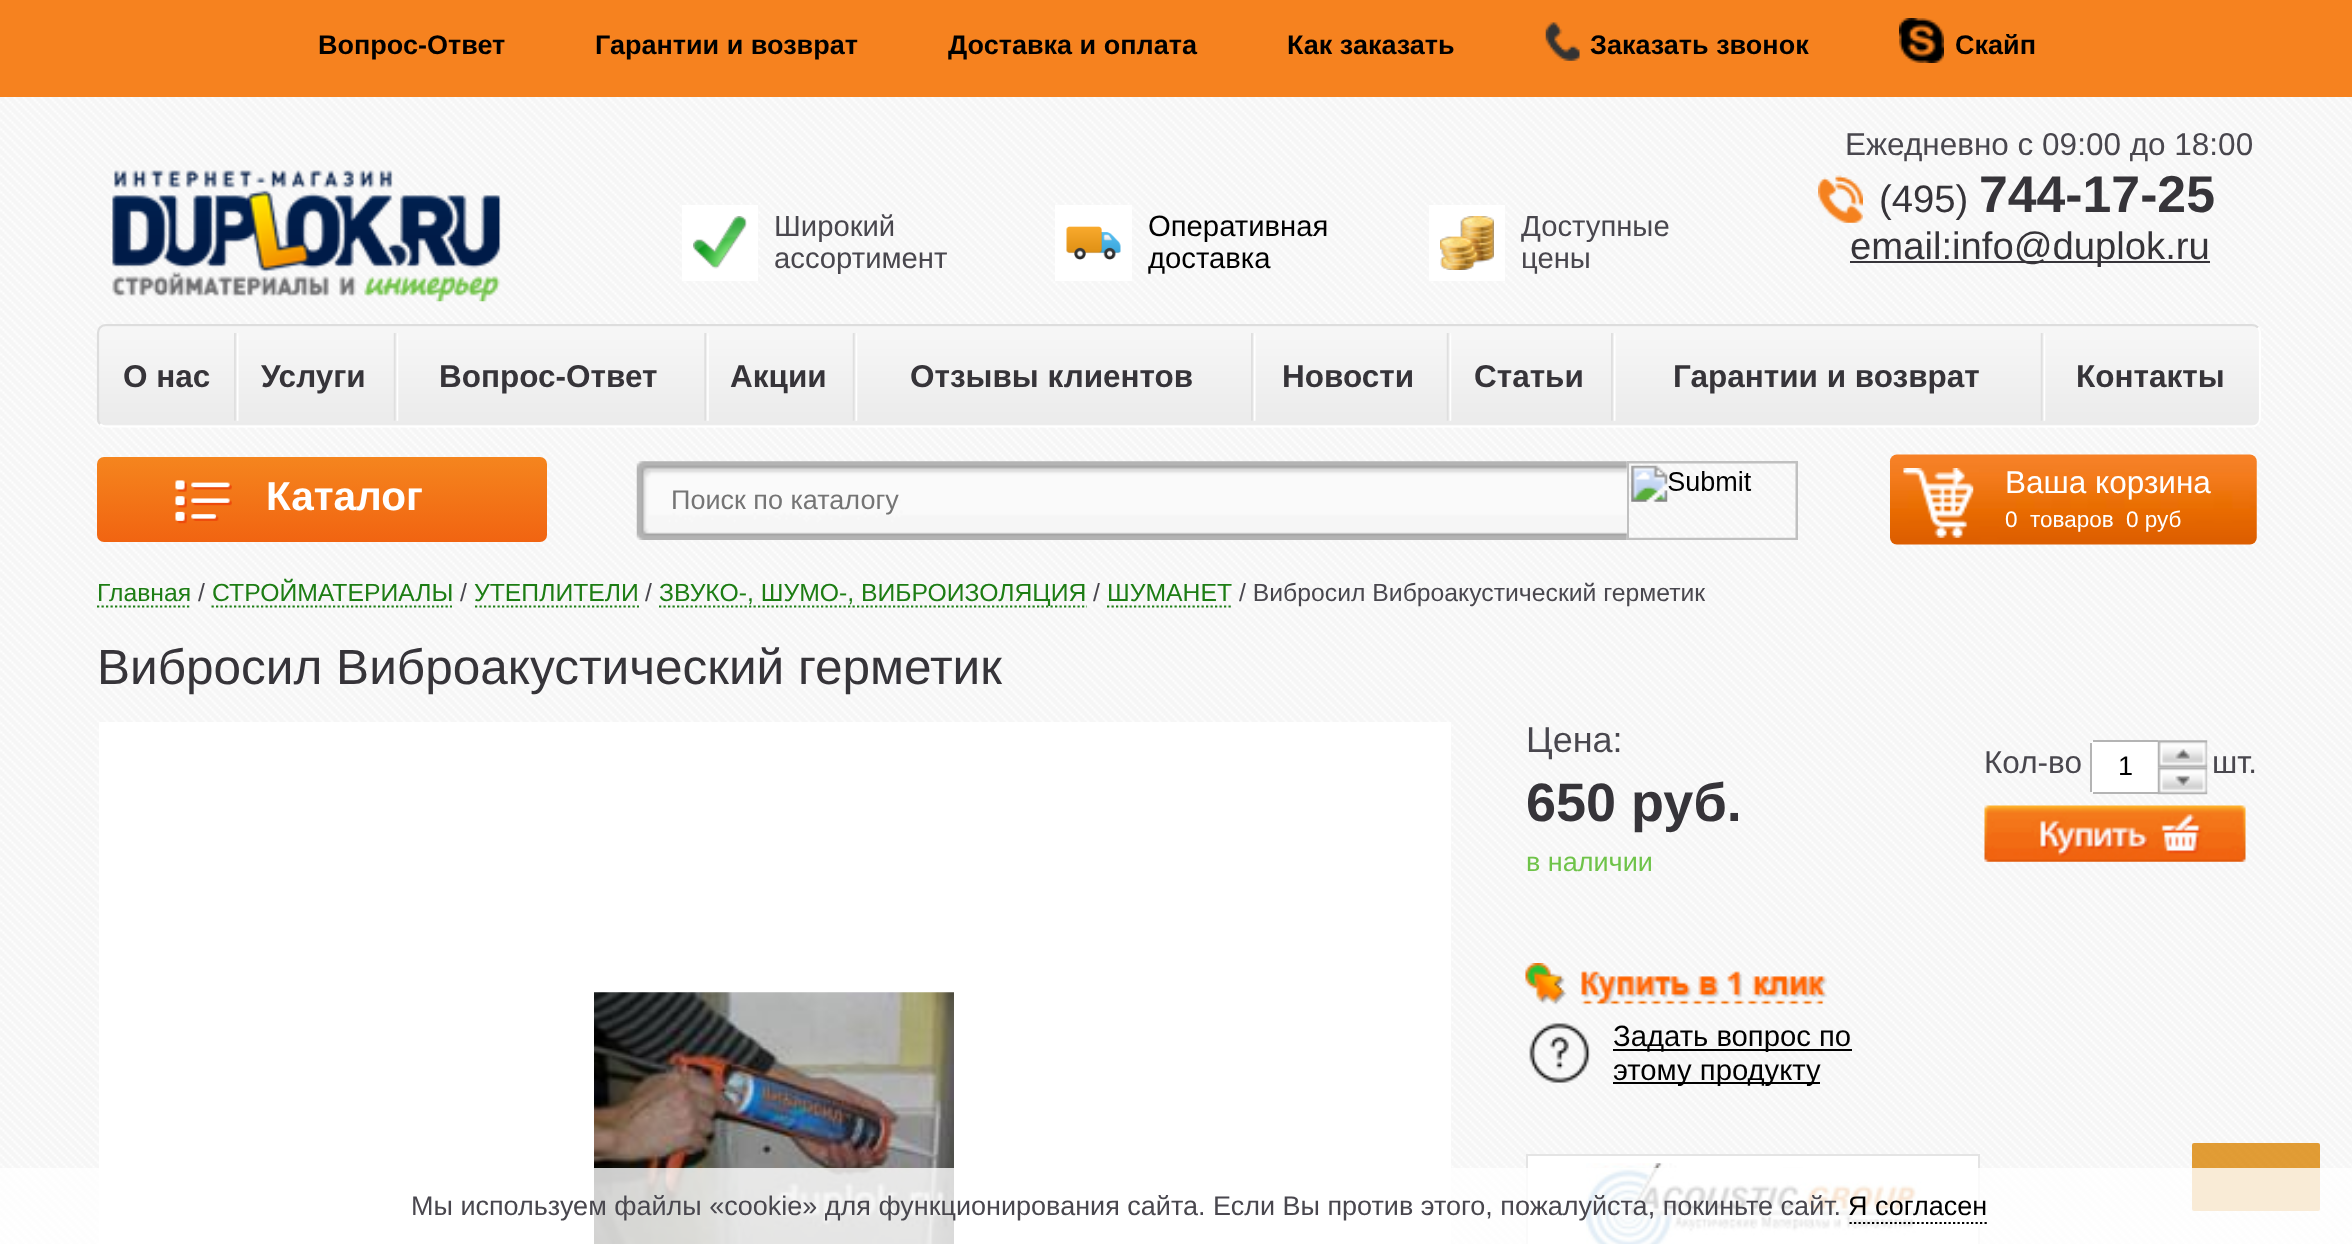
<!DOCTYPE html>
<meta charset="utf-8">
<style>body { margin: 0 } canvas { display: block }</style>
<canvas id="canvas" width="2352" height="1244"></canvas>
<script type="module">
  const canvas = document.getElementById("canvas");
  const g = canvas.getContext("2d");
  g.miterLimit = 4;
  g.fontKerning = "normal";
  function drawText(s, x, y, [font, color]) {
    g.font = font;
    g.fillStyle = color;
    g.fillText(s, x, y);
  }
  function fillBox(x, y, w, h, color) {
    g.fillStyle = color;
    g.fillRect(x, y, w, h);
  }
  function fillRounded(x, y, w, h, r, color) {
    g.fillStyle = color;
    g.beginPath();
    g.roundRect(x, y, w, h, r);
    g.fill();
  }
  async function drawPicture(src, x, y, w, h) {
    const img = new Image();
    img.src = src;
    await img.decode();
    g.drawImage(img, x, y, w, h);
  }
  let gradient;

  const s1 = ["bold 27px Liberation Sans", "#000000"];
  const s2 = ["29.25px Liberation Sans", "#49474E"];
  const s3 = ["29.25px Liberation Sans", "#000000"];
  const s4 = ["31.5px Liberation Sans", "#49474E"];
  const s5 = ["38.25px Liberation Sans", "#363439"];
  const s6 = ["bold 51.75px Liberation Sans", "#363439"];
  const s7 = ["bold 31.5px Liberation Sans", "#363439"];
  const s8 = ["bold 40.5px Liberation Sans", "#FFFFFF"];
  const s9 = ["27px Liberation Sans", "#757575"];
  const s10 = ["31.5px Liberation Sans", "#FFFFFF"];
  const s11 = ["22.5px Liberation Sans", "#FFFFFF"];
  const s12 = ["24.75px Liberation Sans", "#1D7D14"];
  const s13 = ["24.75px Liberation Sans", "#49474E"];
  const s14 = ["49.5px Liberation Sans", "#363439"];
  const s15 = ["36px Liberation Sans", "#49474E"];
  const s16 = ["bold 54px Liberation Sans", "#363439"];
  const s17 = ["27px Liberation Sans", "#6FC349"];
  const s18 = ["27px Liberation Sans", "#000000"];
  const s19 = ["27px Liberation Sans", "#49474E"];

  fillBox(0, 0, 2352, 1244, "#FFFFFF");
  await drawPicture("pic1.png", 0, 97, 2352, 1147);
  fillBox(0, 0, 2352, 97, "#F6821F");
  drawText("Вопрос-Ответ", 318, 54, s1);
  drawText("Гарантии и возврат", 595, 54, s1);
  drawText("Доставка и оплата", 948, 54, s1);
  drawText("Как заказать", 1287, 54, s1);
  await drawPicture("pic2.png", 1545, 22, 35, 39);
  drawText("Заказать звонок", 1590, 54, s1);
  await drawPicture("pic3.png", 1899, 18, 45, 45);
  drawText("Скайп", 1955, 54, s1);
  await drawPicture("pic4.png", 112, 170, 389, 132);
  fillBox(682, 205, 76, 76, "#FFFFFF");
  await drawPicture("pic5.png", 693, 216, 54, 53);
  drawText("Широкий", 774, 236, s2);
  drawText("ассортимент", 774, 268, s2);
  fillBox(1055, 205, 77, 76, "#FFFFFF");
  await drawPicture("pic6.png", 1066, 226, 55, 34);
  drawText("Оперативная", 1148, 236, s3);
  drawText("доставка", 1148, 268, s3);
  fillBox(1429, 205, 76, 76, "#FFFFFF");
  await drawPicture("pic7.png", 1440, 216, 54, 54);
  drawText("Доступные", 1521, 236, s2);
  drawText("цены", 1521, 268, s2);
  drawText("Ежедневно c 09:00 до 18:00", 1845, 155, s4);
  await drawPicture("pic8.png", 1818, 175, 45, 48);
  drawText("(495)", 1879, 212, s5);
  drawText("744-17-25", 1979, 212, s6);
  fillBox(1850, 261, 360, 2, "#363439");
  drawText("email:info@duplok.ru", 1850, 259, s5);
  await drawPicture("pic9.png", 97, 324, 2164, 103);
  g.beginPath();
  g.moveTo(2258, 327.5);
  g.bezierCurveTo(2259.5, 329, 2260, 331, 2260, 333);
  g.lineTo(2260, 418.5);
  g.bezierCurveTo(2260, 420.5, 2259.5, 422.5, 2258, 424);
  g.bezierCurveTo(2256.5, 425.5, 2254.5, 426.5, 2252, 426.5);
  g.lineTo(106, 426.5);
  g.bezierCurveTo(103.5, 426.5, 101.5, 425.5, 100, 424);
  g.strokeStyle = "#FFFFFF";
  g.lineWidth = 2.2;
  g.stroke();
  g.beginPath();
  g.moveTo(100, 424);
  g.bezierCurveTo(98.5, 422.5, 98, 420.5, 98, 418.5);
  g.lineTo(98, 333);
  g.bezierCurveTo(98, 331, 98.5, 329, 100, 327.5);
  g.bezierCurveTo(101.5, 326, 103.5, 325, 106, 325);
  g.lineTo(2252, 325);
  g.bezierCurveTo(2254.5, 325, 2256.5, 326, 2258, 327.5);
  g.strokeStyle = "#DDDDDD";
  g.stroke();
  drawText("О нас", 123, 387, s7);
  await drawPicture("pic10.png", 234, 333, 5, 88);
  drawText("Услуги", 261, 387, s7);
  await drawPicture("pic11.png", 393, 333, 6, 88);
  drawText("Вопрос-Ответ", 439, 387, s7);
  await drawPicture("pic12.png", 704, 333, 5, 88);
  drawText("Акции", 730, 387, s7);
  await drawPicture("pic11.png", 852, 333, 6, 88);
  drawText("Отзывы клиентов", 910, 387, s7);
  await drawPicture("pic10.png", 1251, 333, 5, 88);
  drawText("Новости", 1282, 387, s7);
  await drawPicture("pic11.png", 1446, 333, 6, 88);
  drawText("Статьи", 1474, 387, s7);
  await drawPicture("pic10.png", 1611, 333, 5, 88);
  drawText("Гарантии и возврат", 1673, 387, s7);
  await drawPicture("pic11.png", 2040, 333, 6, 88);
  drawText("Контакты", 2076, 387, s7);
  gradient = g.createLinearGradient(322, 457, 322, 542);
  gradient.addColorStop(0, "#F5851E");
  gradient.addColorStop(1, "#F16411");
  g.fillStyle = gradient;
  g.beginPath();
  g.roundRect(97, 457, 450, 85, 7);
  g.fill();
  await drawPicture("pic13.png", 175, 480, 57, 44);
  drawText("Каталог", 266, 510, s8);
  await drawPicture("pic14.png", 636, 461, 991, 79);
  drawText("Поиск по каталогу", 671, 509, s9);
  await drawPicture("pic15.png", 1629, 463, 167, 75);
  g.strokeStyle = "#C0C0C0";
  g.lineWidth = 2;
  g.strokeRect(1628, 462, 169, 77);
  await drawPicture("pic16.png", 1889, 454, 368, 91);
  await drawPicture("pic17.png", 1903, 468, 71, 70);
  drawText("Ваша корзина", 2005, 493, s10);
  drawText("0", 2005, 527, s11);
  drawText("товаров", 2030, 527, s11);
  drawText("0 руб", 2126, 527, s11);
  drawText("Главная", 97, 601, s12);
  g.beginPath();
  g.moveTo(97, 606.5);
  g.lineTo(191, 606.5);
  g.strokeStyle = "#1D7D14";
  g.lineWidth = 2.2;
  g.setLineDash([2.25, 2.25]);
  g.stroke();
  drawText("/", 198, 601, s13);
  drawText("СТРОЙМАТЕРИАЛЫ", 212, 601, s12);
  g.beginPath();
  g.moveTo(211.5, 606.5);
  g.lineTo(452, 606.5);
  g.stroke();
  drawText("/", 460, 601, s13);
  drawText("УТЕПЛИТЕЛИ", 474, 601, s12);
  g.beginPath();
  g.moveTo(475, 606.5);
  g.lineTo(639, 606.5);
  g.stroke();
  drawText("/", 645, 601, s13);
  g.beginPath();
  g.moveTo(659, 606.5);
  g.lineTo(1087, 606.5);
  g.stroke();
  drawText("ЗВУКО-, ШУМО-, ВИБРОИЗОЛЯЦИЯ", 659, 601, s12);
  drawText("/", 1093, 601, s13);
  drawText("ШУМАНЕТ", 1107, 601, s12);
  g.beginPath();
  g.moveTo(1107, 606.5);
  g.lineTo(1233, 606.5);
  g.stroke();
  drawText("/ Вибросил Виброакустический герметик", 1239, 601, s13);
  drawText("Вибросил Виброакустический герметик", 97, 684, s14);
  fillBox(99, 722, 1352, 522, "#FFFFFF");
  await drawPicture("pic18.png", 594, 992, 360, 252);
  drawText("Цена:", 1526, 752, s15);
  drawText("650 руб.", 1526, 821, s16);
  drawText("в наличии", 1526, 871, s17);
  drawText("Кол-во", 1984, 773, s4);
  g.fillStyle = "#FFFFFF";
  g.beginPath();
  g.roundRect(2090, 740, 68, 54, [5, 0, 0, 5]);
  g.fill();
  fillBox(2093, 740, 65, 2, "#B4B4B4");
  fillBox(2093, 792, 65, 2, "#B4B4B4");
  fillBox(2090, 743, 2, 49, "#B4B4B4");
  drawText("1", 2118, 775, s18);
  await drawPicture("pic19.png", 2157, 740, 51, 28);
  await drawPicture("pic20.png", 2157, 767, 51, 28);
  drawText("шт.", 2212, 773, s4);
  await drawPicture("pic21.png", 1984, 805, 262, 57);
  await drawPicture("pic22.png", 1525, 963, 302, 42);
  await drawPicture("pic23.png", 1529, 1023, 62, 60);
  fillBox(1613, 1049, 239, 2, "#000000");
  drawText("Задать вопрос по", 1613, 1046, s3);
  fillBox(1613, 1082, 207, 2, "#000000");
  drawText("этому продукту", 1613, 1080, s3);
  fillBox(1528, 1156, 450, 88, "#FFFFFF");
  await drawPicture("pic24.png", 1586, 1163, 336, 81);
  g.strokeStyle = "#E4E4E4";
  g.lineWidth = 2;
  g.setLineDash([]);
  g.strokeRect(1527, 1155, 452, 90);
  fillRounded(2192, 1143, 128, 68, 2, "rgba(219, 132, 4, 0.8)");
  fillBox(0, 1168, 2352, 76, "rgba(255, 255, 255, 0.8)");
  drawText("Мы используем файлы «cookie» для функционирования сайта. Если Вы против этого, пожалуйста, покиньте сайт.", 411, 1215, s19);
  drawText("Я согласен", 1848, 1215, s18);
  g.beginPath();
  g.moveTo(1849.5, 1223);
  g.lineTo(1987, 1223);
  g.strokeStyle = "#000000";
  g.lineWidth = 2.2;
  g.setLineDash([2.25, 2.25]);
  g.stroke();
</script>
